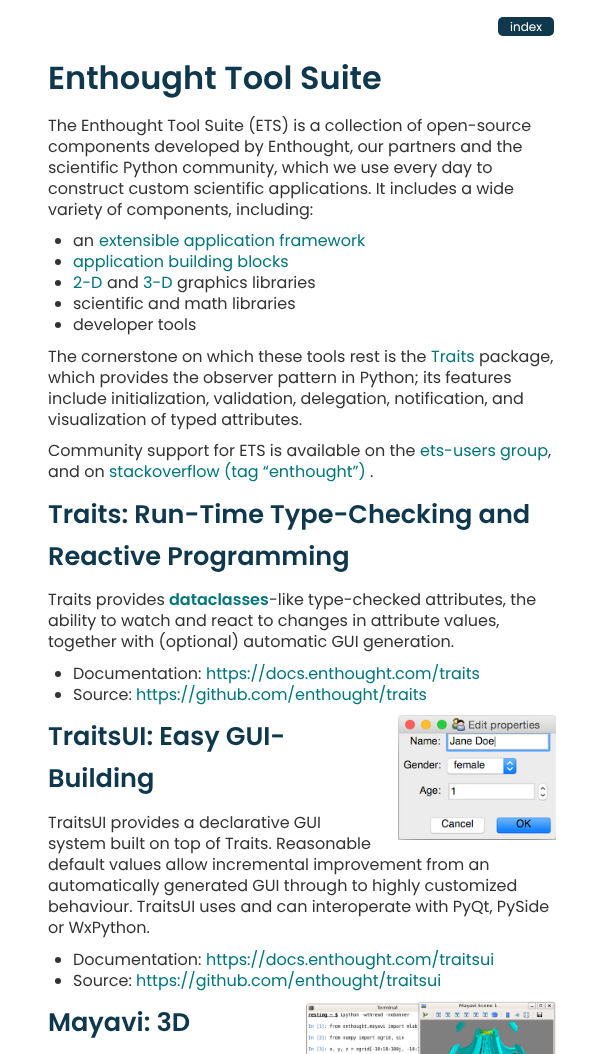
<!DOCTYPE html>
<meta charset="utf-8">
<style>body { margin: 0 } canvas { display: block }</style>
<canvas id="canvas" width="604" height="1054"></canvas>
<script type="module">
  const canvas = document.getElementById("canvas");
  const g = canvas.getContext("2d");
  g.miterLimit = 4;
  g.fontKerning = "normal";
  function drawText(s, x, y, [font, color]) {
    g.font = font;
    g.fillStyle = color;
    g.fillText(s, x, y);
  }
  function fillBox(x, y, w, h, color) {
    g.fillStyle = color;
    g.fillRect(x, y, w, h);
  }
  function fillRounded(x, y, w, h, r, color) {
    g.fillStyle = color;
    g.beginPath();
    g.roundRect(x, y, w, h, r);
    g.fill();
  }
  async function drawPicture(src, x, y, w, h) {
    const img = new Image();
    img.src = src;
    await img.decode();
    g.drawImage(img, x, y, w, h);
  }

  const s1 = ["12px Poppins", "#FFFFFF"];
  const s2 = ["600 32px Poppins", "#0F384D"];
  const s3 = ["16px Poppins", "#333333"];
  const s4 = ["16px Poppins", "#00767C"];
  const s5 = ["600 25.6px Poppins", "#0F384D"];
  const s6 = ["600 16px Poppins", "#00767C"];

  fillBox(0, 0, 604, 1054, "#FFFFFF");
  fillRounded(498, 17, 56, 19, 5, "#0F384D");
  drawText("index", 510, 31, s1);
  drawText("Enthought Tool Suite", 48, 89, s2);
  drawText("The Enthought Tool Suite (ETS) is a collection of open-source", 48, 131, s3);
  drawText("components developed by Enthought, our partners and the", 48, 152, s3);
  drawText("scientific Python community, which we use every day to", 48, 173, s3);
  drawText("construct custom scientific applications. It includes a wide", 48, 194, s3);
  drawText("variety of components, including:", 48, 215, s3);
  g.beginPath();
  g.arc(58, 241, 3, 0, Math.PI * 2);
  g.fill();
  drawText("an", 73, 246, s3);
  drawText("extensible application framework", 99, 246, s4);
  g.fillStyle = "#333333";
  g.beginPath();
  g.arc(58, 262, 3, 0, Math.PI * 2);
  g.fill();
  drawText("application building blocks", 73, 267, s4);
  g.fillStyle = "#333333";
  g.beginPath();
  g.arc(58, 283, 3, 0, Math.PI * 2);
  g.fill();
  drawText("2-D", 73, 288, s4);
  drawText("and", 107, 288, s3);
  drawText("3-D", 143, 288, s4);
  drawText("graphics libraries", 177, 288, s3);
  g.beginPath();
  g.arc(58, 304, 3, 0, Math.PI * 2);
  g.fill();
  drawText("scientific and math libraries", 73, 309, s3);
  g.beginPath();
  g.arc(58, 325, 3, 0, Math.PI * 2);
  g.fill();
  drawText("developer tools", 73, 330, s3);
  drawText("The cornerstone on which these tools rest is the", 48, 362, s3);
  drawText("Traits", 431, 362, s4);
  drawText("package,", 479, 362, s3);
  drawText("which provides the observer pattern in Python; its features", 48, 383, s3);
  drawText("include initialization, validation, delegation, notification, and", 48, 404, s3);
  drawText("visualization of typed attributes.", 48, 425, s3);
  drawText("Community support for ETS is available on the", 48, 456, s3);
  drawText("ets-users group", 420, 456, s4);
  drawText(",", 548, 456, s3);
  drawText("and on", 48, 477, s3);
  drawText("stackoverflow (tag “enthought”)", 109, 477, s4);
  drawText(".", 370, 477, s3);
  drawText("Traits: Run-Time Type-Checking and", 48, 523, s5);
  drawText("Reactive Programming", 48, 565, s5);
  drawText("Traits provides", 48, 605, s3);
  drawText("dataclasses", 169, 605, s6);
  drawText("-like type-checked attributes, the", 269, 605, s3);
  drawText("ability to watch and react to changes in attribute values,", 48, 626, s3);
  drawText("together with (optional) automatic GUI generation.", 48, 647, s3);
  g.beginPath();
  g.arc(58, 674, 3, 0, Math.PI * 2);
  g.fill();
  drawText("Documentation:", 73, 679, s3);
  drawText("https://docs.enthought.com/traits", 206, 679, s4);
  g.fillStyle = "#333333";
  g.beginPath();
  g.arc(58, 695, 3, 0, Math.PI * 2);
  g.fill();
  drawText("Source:", 73, 700, s3);
  drawText("https://github.com/enthought/traits", 136, 700, s4);
  await drawPicture("pic1.png", 398, 715, 158, 125);
  drawText("TraitsUI: Easy GUI-", 48, 745, s5);
  drawText("Building", 48, 787, s5);
  drawText("TraitsUI provides a declarative GUI", 48, 828, s3);
  drawText("system built on top of Traits. Reasonable", 48, 849, s3);
  drawText("default values allow incremental improvement from an", 48, 870, s3);
  drawText("automatically generated GUI through to highly customized", 48, 891, s3);
  drawText("behaviour. TraitsUI uses and can interoperate with PyQt, PySide", 48, 912, s3);
  drawText("or WxPython.", 48, 933, s3);
  g.beginPath();
  g.arc(58, 960, 3, 0, Math.PI * 2);
  g.fill();
  drawText("Documentation:", 73, 965, s3);
  drawText("https://docs.enthought.com/traitsui", 206, 965, s4);
  g.fillStyle = "#333333";
  g.beginPath();
  g.arc(58, 981, 3, 0, Math.PI * 2);
  g.fill();
  drawText("Source:", 73, 986, s3);
  drawText("https://github.com/enthought/traitsui", 136, 986, s4);
  await drawPicture("pic2.png", 306, 1001, 250, 53);
  drawText("Mayavi: 3D", 48, 1031, s5);
</script>
